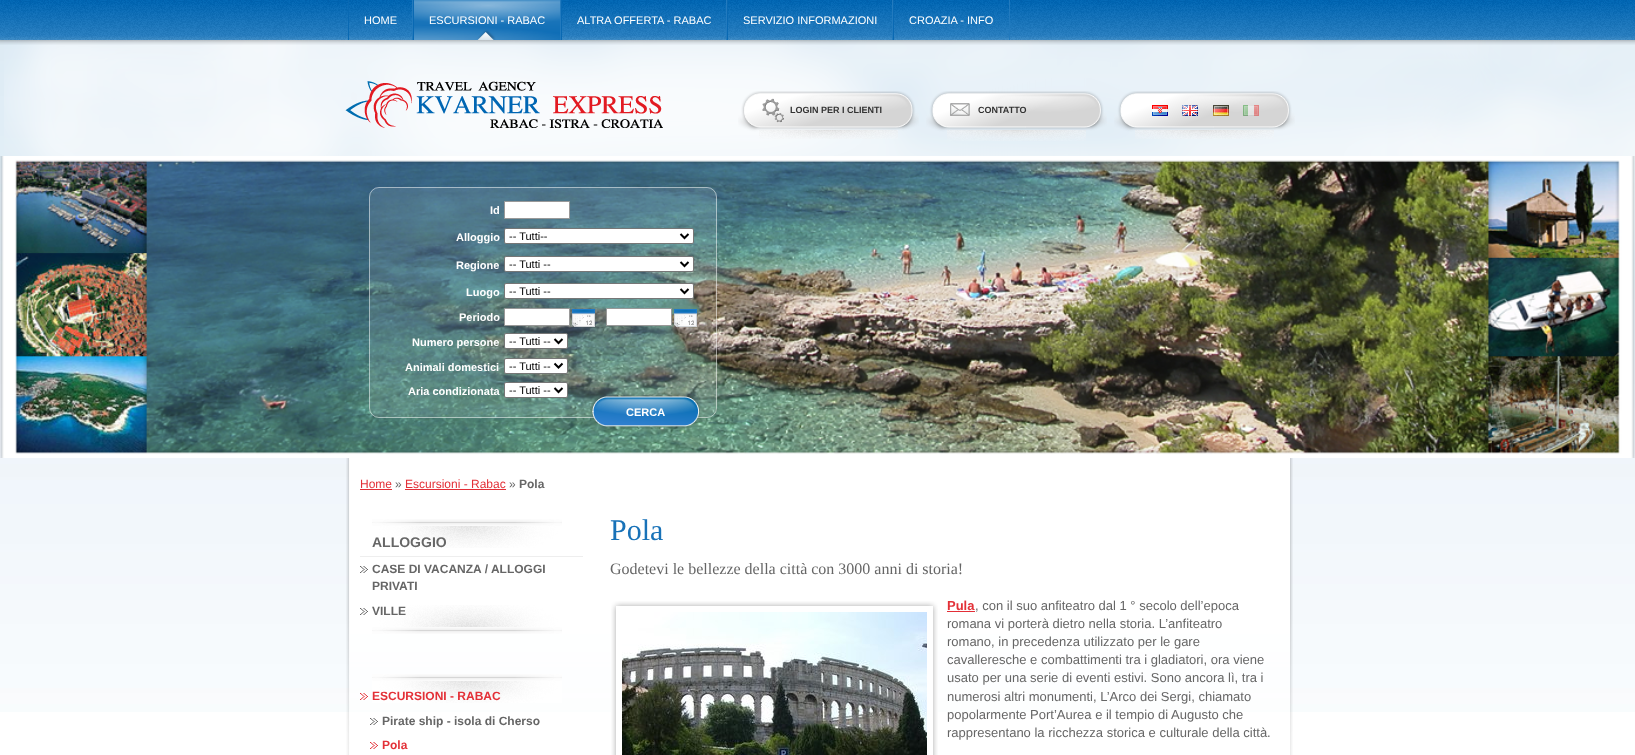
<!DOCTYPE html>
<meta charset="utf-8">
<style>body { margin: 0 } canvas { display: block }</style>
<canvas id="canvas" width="1635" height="755"></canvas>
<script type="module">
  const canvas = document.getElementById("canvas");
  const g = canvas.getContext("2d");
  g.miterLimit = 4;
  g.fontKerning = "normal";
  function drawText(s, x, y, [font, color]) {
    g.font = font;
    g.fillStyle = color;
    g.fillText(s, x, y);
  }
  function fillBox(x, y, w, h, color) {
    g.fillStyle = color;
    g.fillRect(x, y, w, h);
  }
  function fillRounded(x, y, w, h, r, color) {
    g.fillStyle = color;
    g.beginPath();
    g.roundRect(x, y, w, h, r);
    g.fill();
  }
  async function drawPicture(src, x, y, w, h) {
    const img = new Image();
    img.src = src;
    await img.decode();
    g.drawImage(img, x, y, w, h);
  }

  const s1 = ["11px Liberation Sans", "#FFFFFF"];
  const s2 = ["bold 9px Liberation Sans", "#333333"];
  const s3 = ["bold 11px Liberation Sans", "#FFFFFF"];
  const s4 = ["11px Liberation Sans", "#000000"];
  const s5 = ["12px Liberation Sans", "#E33037"];
  const s6 = ["12px Liberation Sans", "#666666"];
  const s7 = ["bold 12px Liberation Sans", "#666666"];
  const s8 = ["bold 14px Liberation Sans", "#666666"];
  const s9 = ["bold 12px Liberation Sans", "#E33037"];
  const s10 = ["30px Liberation Serif", "#1872B8"];
  const s11 = ["16px Liberation Serif", "#666666"];
  const s12 = ["bold 13px Liberation Sans", "#E33037"];
  const s13 = ["13px Liberation Sans", "#666666"];

  fillBox(0, 0, 1635, 755, "#FFFFFF");
  await drawPicture("pic1.png", 0, 40, 1635, 672);
  await drawPicture("pic2.png", 4, 40, 1631, 240);
  await drawPicture("pic3.png", 0, 0, 1635, 45);
  fillBox(412, 0, 1, 40, "#227ABE");
  fillBox(348, 0, 1, 40, "#0969B3");
  drawText("HOME", 364, 24, s1);
  await drawPicture("pic4.png", 414, 0, 146, 40);
  fillBox(560, 0, 1, 40, "#227ABE");
  fillBox(413, 0, 1, 40, "#0969B3");
  drawText("ESCURSIONI - RABAC", 429, 24, s1);
  fillBox(726, 0, 1, 40, "#227ABE");
  fillBox(561, 0, 1, 40, "#0969B3");
  drawText("ALTRA OFFERTA - RABAC", 577, 24, s1);
  fillBox(892, 0, 1, 40, "#227ABE");
  fillBox(727, 0, 1, 40, "#0969B3");
  drawText("SERVIZIO INFORMAZIONI", 743, 24, s1);
  fillBox(1009, 0, 1, 40, "#227ABE");
  fillBox(893, 0, 1, 40, "#0969B3");
  drawText("CROAZIA - INFO", 909, 24, s1);
  await drawPicture("pic5.png", 345, 81, 318, 47);
  await drawPicture("pic6.png", 738, 91, 181, 48);
  drawText("LOGIN PER I CLIENTI", 790, 113, s2);
  await drawPicture("pic7.png", 926, 91, 181, 50);
  drawText("CONTATTO", 978, 113, s2);
  await drawPicture("pic8.png", 1114, 91, 181, 48);
  await drawPicture("pic9.png", 1152, 105, 16, 11);
  await drawPicture("pic10.png", 1182, 105, 16, 11);
  await drawPicture("pic11.png", 1213, 105, 16, 11);
  await drawPicture("pic12.png", 1243, 105, 16, 11);
  await drawPicture("pic13.png", 0, 156, 1635, 302);
  fillRounded(369, 187, 348, 231, 10, "rgba(255, 255, 255, 0.1)");
  g.beginPath();
  g.roundRect(369.5, 187.5, 347, 230, 9.5);
  g.strokeStyle = "rgba(255, 255, 255, 0.5)";
  g.stroke();
  drawText("Id", 490, 214, s3);
  g.beginPath();
  g.rect(504.5, 201.5, 65, 17);
  g.fill();
  g.strokeStyle = "#999999";
  g.stroke();
  drawText("Alloggio", 456, 241, s3);
  g.beginPath();
  g.roundRect(504.5, 228.5, 189, 15, 1.5);
  g.fill();
  g.strokeStyle = "#767676";
  g.stroke();
  g.beginPath();
  g.moveTo(680.5, 234);
  g.lineTo(684.5, 238);
  g.lineTo(688.5, 234);
  g.strokeStyle = "#000000";
  g.lineWidth = 2;
  g.stroke();
  drawText("-- Tutti--", 509, 240, s4);
  drawText("Regione", 456, 269, s3);
  g.beginPath();
  g.roundRect(504.5, 256.5, 189, 15, 1.5);
  g.fill();
  g.strokeStyle = "#767676";
  g.lineWidth = 1;
  g.stroke();
  g.beginPath();
  g.moveTo(680.5, 262);
  g.lineTo(684.5, 266);
  g.lineTo(688.5, 262);
  g.strokeStyle = "#000000";
  g.lineWidth = 2;
  g.stroke();
  drawText("-- Tutti --", 509, 268, s4);
  drawText("Luogo", 466, 296, s3);
  g.beginPath();
  g.roundRect(504.5, 283.5, 189, 15, 1.5);
  g.fill();
  g.strokeStyle = "#767676";
  g.lineWidth = 1;
  g.stroke();
  g.beginPath();
  g.moveTo(680.5, 289);
  g.lineTo(684.5, 293);
  g.lineTo(688.5, 289);
  g.strokeStyle = "#000000";
  g.lineWidth = 2;
  g.stroke();
  drawText("-- Tutti --", 509, 295, s4);
  drawText("Periodo", 459, 321, s3);
  g.beginPath();
  g.rect(504.5, 308.5, 65, 17);
  g.fill();
  g.strokeStyle = "#999999";
  g.lineWidth = 1;
  g.stroke();
  await drawPicture("pic14.png", 572, 309, 23, 18);
  g.beginPath();
  g.rect(606.5, 308.5, 65, 17);
  g.fill();
  g.stroke();
  await drawPicture("pic15.png", 674, 309, 23, 18);
  drawText("Numero persone", 412, 346, s3);
  g.beginPath();
  g.roundRect(504.5, 333.5, 63, 15, 1.5);
  g.fill();
  g.strokeStyle = "#767676";
  g.stroke();
  g.beginPath();
  g.moveTo(554.5, 339);
  g.lineTo(558.5, 343);
  g.lineTo(562.5, 339);
  g.strokeStyle = "#000000";
  g.lineWidth = 2;
  g.stroke();
  drawText("-- Tutti --", 509, 345, s4);
  drawText("Animali domestici", 405, 371, s3);
  g.beginPath();
  g.roundRect(504.5, 358.5, 63, 15, 1.5);
  g.fill();
  g.strokeStyle = "#767676";
  g.lineWidth = 1;
  g.stroke();
  g.beginPath();
  g.moveTo(554.5, 363.5);
  g.lineTo(558.5, 367.5);
  g.lineTo(562.5, 363.5);
  g.strokeStyle = "#000000";
  g.lineWidth = 2;
  g.stroke();
  drawText("-- Tutti --", 509, 370, s4);
  drawText("Aria condizionata", 408, 395, s3);
  g.beginPath();
  g.roundRect(504.5, 382.5, 63, 15, 1.5);
  g.fill();
  g.strokeStyle = "#767676";
  g.lineWidth = 1;
  g.stroke();
  g.beginPath();
  g.moveTo(554.5, 388);
  g.lineTo(558.5, 392);
  g.lineTo(562.5, 388);
  g.strokeStyle = "#000000";
  g.lineWidth = 2;
  g.stroke();
  drawText("-- Tutti --", 509, 394, s4);
  await drawPicture("pic16.png", 590, 393, 112, 36);
  drawText("CERCA", 626, 416, s3);
  await drawPicture("pic17.png", 346, 458, 947, 297);
  drawText("Home", 360, 488, s5);
  fillBox(360, 489, 32, 1, "#E32E37");
  drawText("»", 395, 488, s6);
  drawText("Escursioni - Rabac", 405, 488, s5);
  fillBox(405, 489, 101, 1, "#E32E37");
  drawText("»", 509, 488, s6);
  drawText("Pola", 519, 488, s7);
  await drawPicture("pic18.png", 372, 519, 190, 29);
  await drawPicture("pic19.png", 372, 605, 190, 29);
  fillBox(360, 556, 223, 1, "#EEEEEE");
  drawText("ALLOGGIO", 372, 547, s8);
  await drawPicture("pic20.png", 360, 566, 8, 7);
  drawText("CASE DI VACANZA / ALLOGGI", 372, 573, s7);
  drawText("PRIVATI", 372, 590, s7);
  await drawPicture("pic20.png", 360, 608, 8, 7);
  drawText("VILLE", 372, 615, s7);
  await drawPicture("pic18.png", 372, 674, 190, 29);
  await drawPicture("pic21.png", 360, 693, 8, 7);
  drawText("ESCURSIONI - RABAC", 372, 700, s9);
  await drawPicture("pic20.png", 370, 718, 8, 7);
  drawText("Pirate ship - isola di Cherso", 382, 725, s7);
  await drawPicture("pic21.png", 370, 742, 8, 7);
  drawText("Pola", 382, 749, s9);
  drawText("Pola", 610, 540, s10);
  drawText("Godetevi le bellezze della città con 3000 anni di storia!", 610, 574, s11);
  await drawPicture("pic22.png", 611, 601, 327, 154);
  await drawPicture("pic23.png", 622, 612, 305, 143);
  drawText("Pula", 947, 610, s12);
  fillBox(947, 611, 28, 1, "#E32E37");
  drawText(", con il suo anfiteatro dal 1 ° secolo dell’epoca", 975, 610, s13);
  drawText("romana vi porterà dietro nella storia. L’anfiteatro", 947, 628, s13);
  drawText("romano, in precedenza utilizzato per le gare", 947, 646, s13);
  drawText("cavalleresche e combattimenti tra i gladiatori, ora viene", 947, 664, s13);
  drawText("usato per una serie di eventi estivi. Sono ancora lì, tra i", 947, 682, s13);
  drawText("numerosi altri monumenti, L’Arco dei Sergi, chiamato", 947, 701, s13);
  drawText("popolarmente Port’Aurea e il tempio di Augusto che", 947, 719, s13);
  drawText("rappresentano la ricchezza storica e culturale della città.", 947, 737, s13);
</script>
